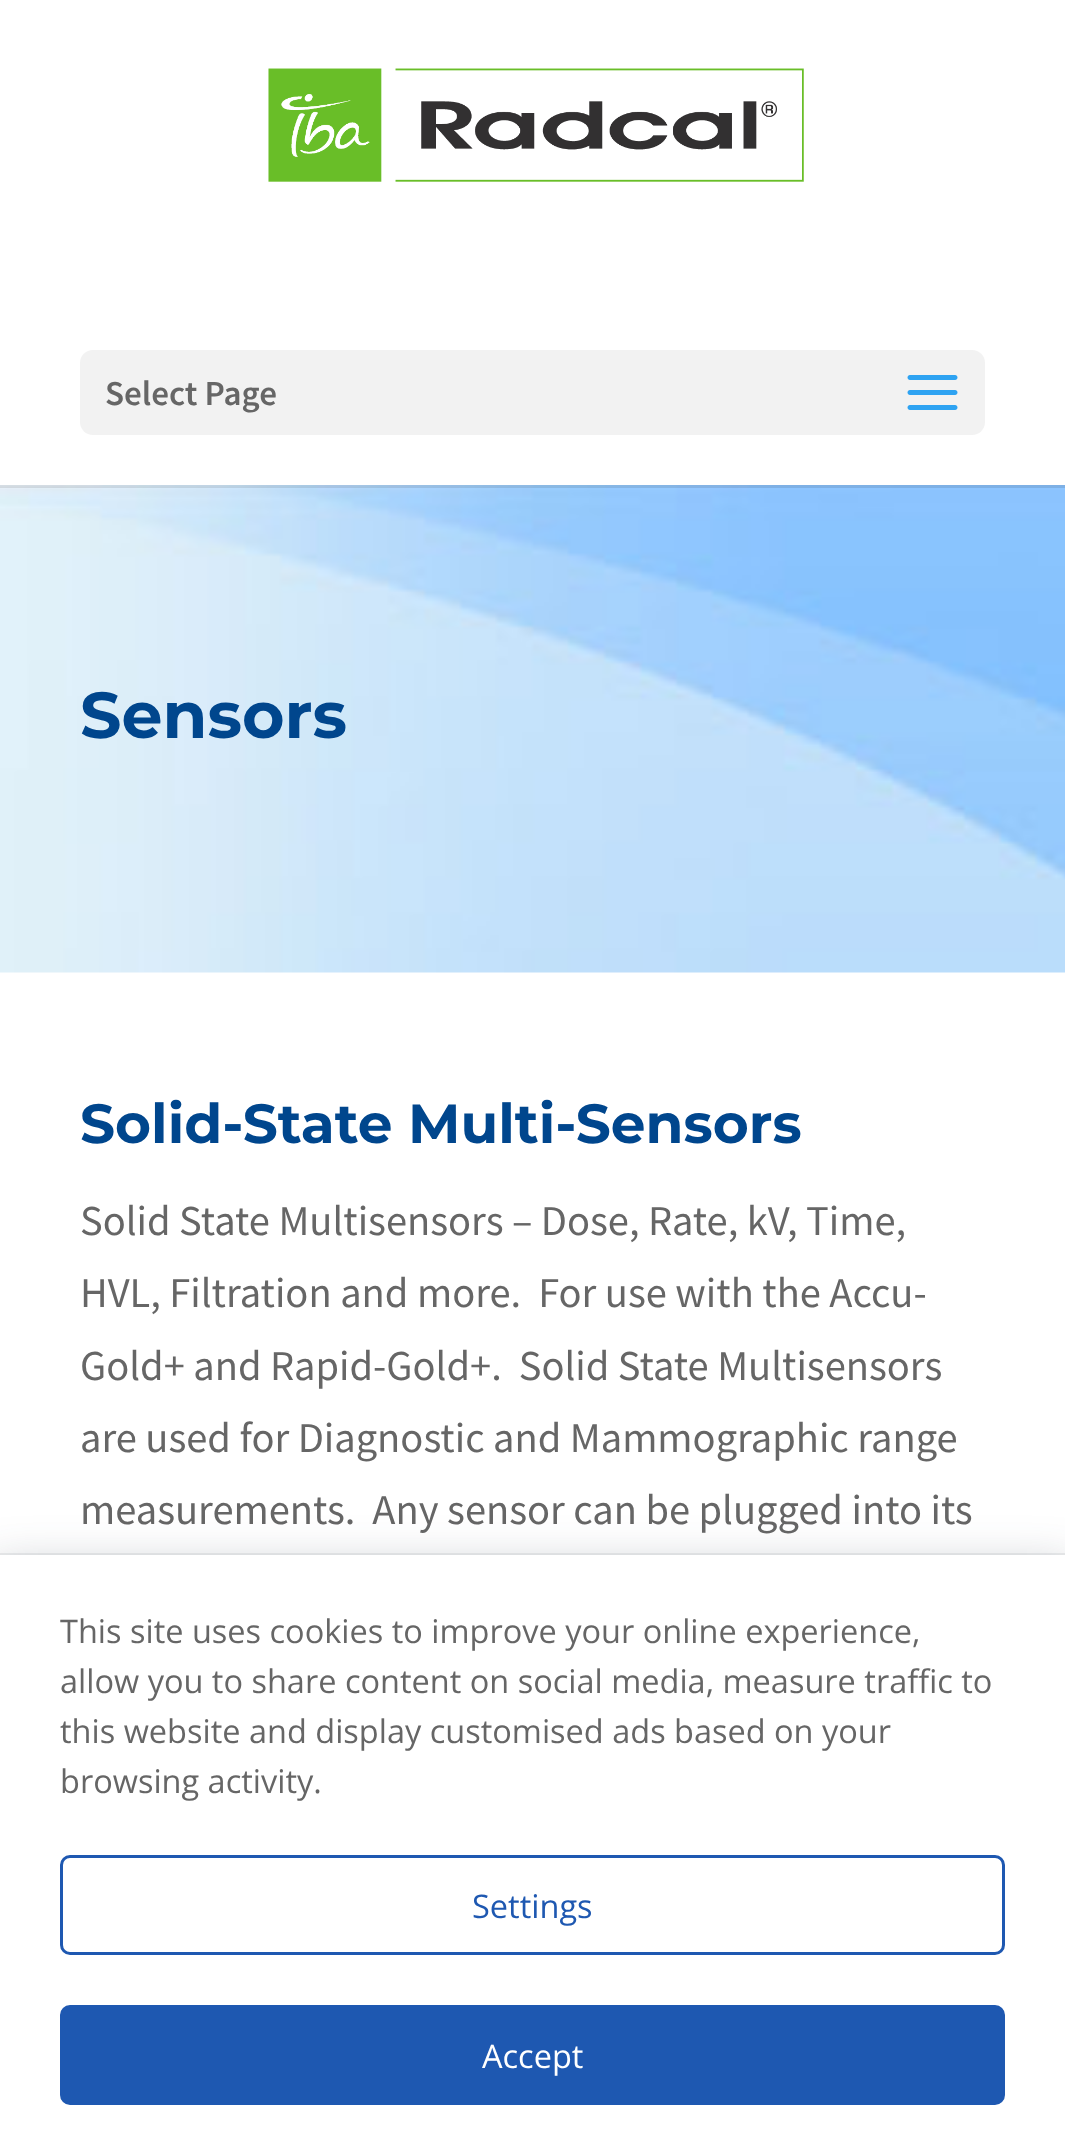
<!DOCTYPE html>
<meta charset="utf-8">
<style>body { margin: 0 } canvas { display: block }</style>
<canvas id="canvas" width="1065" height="2153"></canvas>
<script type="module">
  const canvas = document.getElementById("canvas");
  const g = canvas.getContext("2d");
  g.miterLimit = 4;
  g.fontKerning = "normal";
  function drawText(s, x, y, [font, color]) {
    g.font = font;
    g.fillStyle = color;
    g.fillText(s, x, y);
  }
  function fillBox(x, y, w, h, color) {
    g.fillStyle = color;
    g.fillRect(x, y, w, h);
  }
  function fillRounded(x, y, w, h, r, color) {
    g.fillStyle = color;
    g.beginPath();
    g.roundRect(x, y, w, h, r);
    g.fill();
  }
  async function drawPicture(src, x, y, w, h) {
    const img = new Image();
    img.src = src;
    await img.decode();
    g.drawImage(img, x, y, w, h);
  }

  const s1 = ["600 35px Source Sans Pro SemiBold", "#666666"];
  const s2 = ["bold 65px Montserrat", "#00468D"];
  const s3 = ["bold 55px Montserrat", "#00468D"];
  const s4 = ["42.5px Source Sans Pro", "#666666"];
  const s5 = ["32.5px Open Sans", "#666666"];
  const s6 = ["32.5px Open Sans", "#1E58B1"];
  const s7 = ["32.5px Open Sans", "#FFFFFF"];

  fillBox(0, 0, 1065, 2153, "#FFFFFF");
  await drawPicture("pic3.png", 0, 485, 1065, 488);
  fillBox(0, 485, 1065, 3, "rgba(0, 0, 0, 0.1)");
  await drawPicture("pic1.png", 268, 68, 536, 114);
  fillRounded(80, 350, 905, 85, 13, "#F2F2F2");
  drawText("Select Page", 105, 405, s1);
  await drawPicture("pic2.png", 907, 375, 51, 35);
  drawText("Sensors", 80, 738, s2);
  drawText("Solid-State Multi-Sensors", 80, 1143, s3);
  drawText("Solid State Multisensors – Dose, Rate, kV, Time,", 80, 1235, s4);
  drawText("HVL, Filtration and more.  For use with the Accu-", 80, 1307, s4);
  drawText("Gold+ and Rapid-Gold+.  Solid State Multisensors", 80, 1380, s4);
  drawText("are used for Diagnostic and Mammographic range", 80, 1452, s4);
  drawText("measurements.  Any sensor can be plugged into its", 80, 1524, s4);
  g.fillStyle = "rgba(36, 47, 66, 0.31)";
  g.filter = "blur(25px)";
  g.beginPath();
  g.rect(-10, 1570, 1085, 570);
  g.fill();
  g.filter = "none";
  g.strokeStyle = "rgba(36, 47, 66, 0.08)";
  g.lineWidth = 3;
  g.strokeRect(-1.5, 1554.5, 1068, 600);
  fillBox(0, 1555, 1065, 598, "#FFFFFF");
  drawText("This site uses cookies to improve your online experience,", 60, 1643, s5);
  drawText("allow you to share content on social media, measure traffic to", 60, 1693, s5);
  drawText("this website and display customised ads based on your", 60, 1743, s5);
  drawText("browsing activity.", 60, 1793, s5);
  g.beginPath();
  g.roundRect(61.5, 1856.5, 942, 97, 8.5);
  g.strokeStyle = "#1E58B1";
  g.stroke();
  drawText("Settings", 472, 1918, s6);
  g.beginPath();
  g.roundRect(61.5, 2006.5, 942, 97, 8.5);
  g.fill();
  g.stroke();
  drawText("Accept", 482, 2068, s7);
</script>
